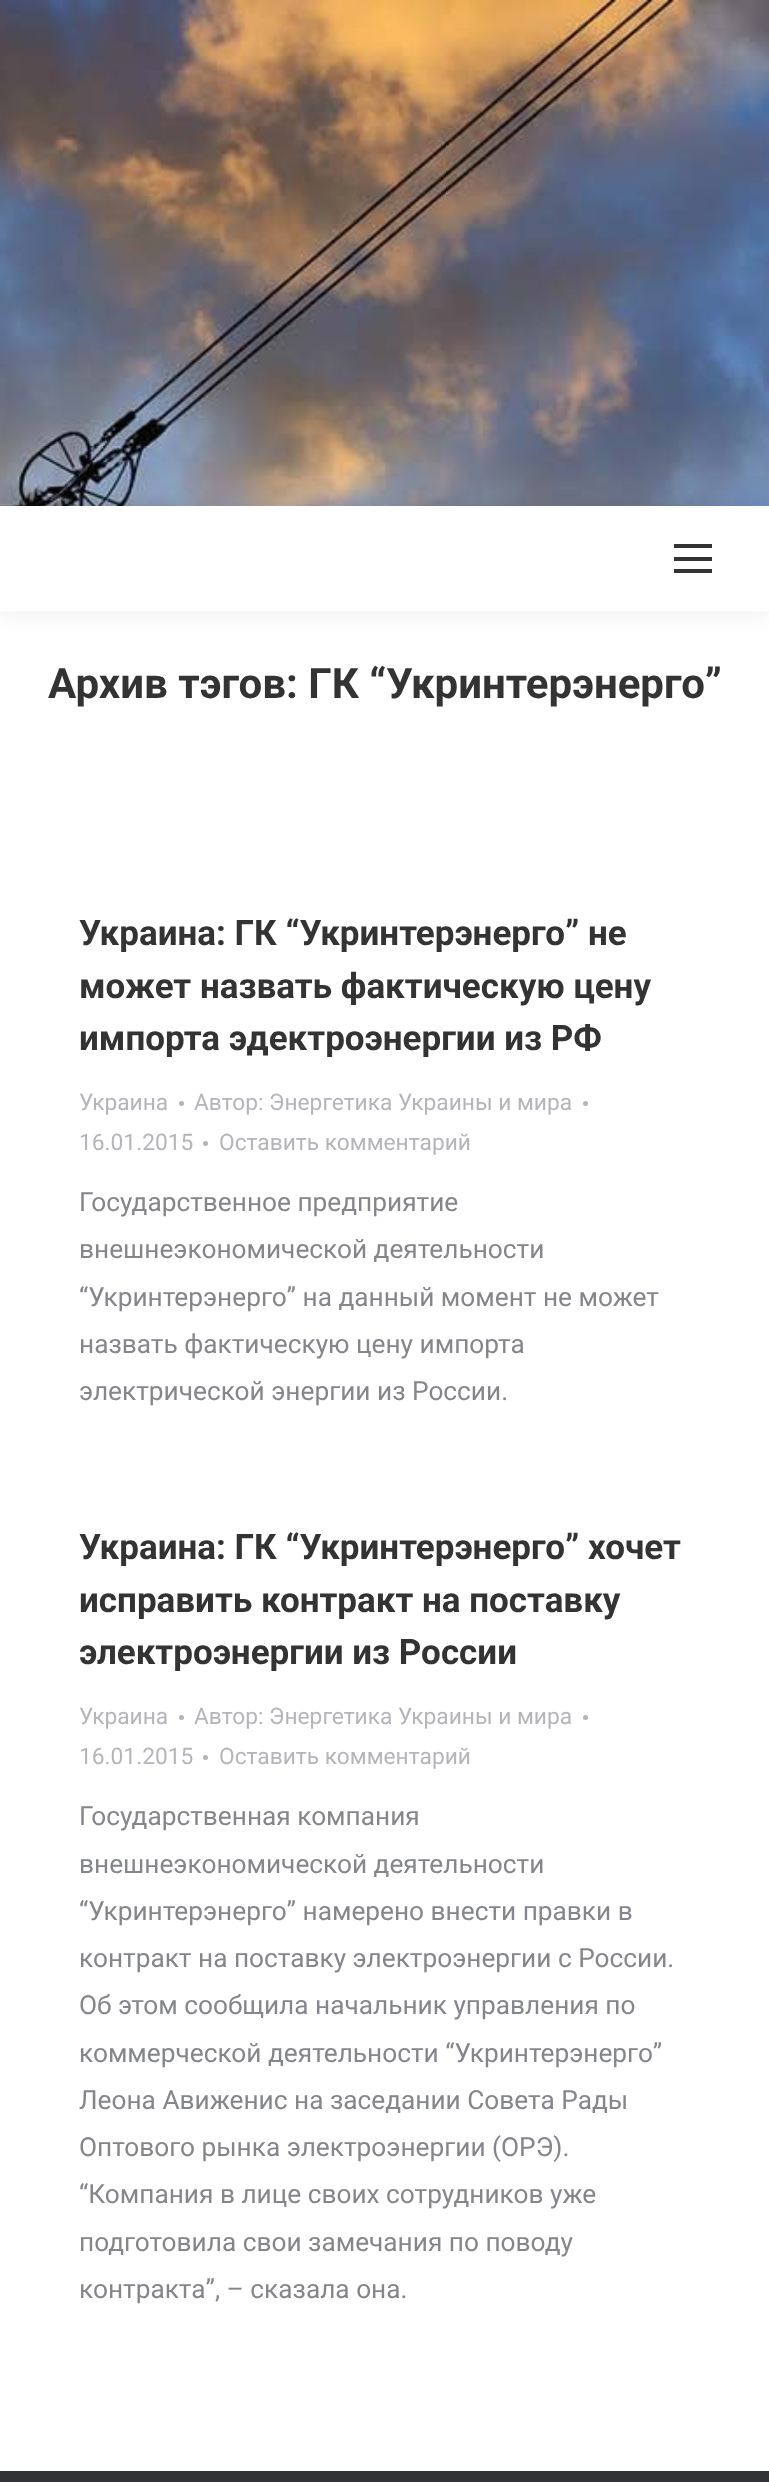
<!DOCTYPE html>
<meta charset="utf-8">
<style>body { margin: 0 } canvas { display: block }</style>
<canvas id="canvas" width="769" height="2482"></canvas>
<script type="module">
  const canvas = document.getElementById("canvas");
  const g = canvas.getContext("2d");
  g.miterLimit = 4;
  g.fontKerning = "normal";
  function drawText(s, x, y, [font, color]) {
    g.font = font;
    g.fillStyle = color;
    g.fillText(s, x, y);
  }
  function fillBox(x, y, w, h, color) {
    g.fillStyle = color;
    g.fillRect(x, y, w, h);
  }
  async function drawPicture(src, x, y, w, h) {
    const img = new Image();
    img.src = src;
    await img.decode();
    g.drawImage(img, x, y, w, h);
  }

  const s1 = ["bold 42px Roboto", "#333333"];
  const s2 = ["bold 35px Roboto", "#333333"];
  const s3 = ["22.75px Roboto", "#B4B5BB"];
  const s4 = ["26.25px Roboto", "#85868C"];

  fillBox(0, 0, 769, 2482, "#FFFFFF");
  await drawPicture("pic1.png", 0, 0, 769, 506);
  g.fillStyle = "rgba(0, 0, 0, 0.15)";
  g.filter = "blur(10.5px)";
  g.beginPath();
  g.rect(0, 506, 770, 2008);
  g.fill();
  g.filter = "none";
  fillBox(0, 611, 769, 1860, "#FFFFFF");
  g.save();
  g.beginPath();
  g.rect(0, 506, 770, 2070);
  g.clip();
  g.fillStyle = "rgba(0, 0, 0, 0.07)";
  g.filter = "blur(13px)";
  g.beginPath();
  g.rect(-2, 504, 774, 109);
  g.fill();
  g.filter = "none";
  g.restore();
  fillBox(0, 506, 769, 105, "#FFFFFF");
  fillBox(674, 557, 38, 4, "#333333");
  fillBox(674, 544, 38, 4, "#333333");
  fillBox(674, 569, 38, 4, "#333333");
  drawText("Архив тэгов: ГК “Укринтерэнерго”", 48, 698, s1);
  drawText("Украина: ГК “Укринтерэнерго” не", 79, 945, s2);
  drawText("может назвать фактическую цену", 79, 998, s2);
  drawText("импорта эдектроэнергии из РФ", 79, 1050, s2);
  drawText("Украина", 79, 1110, s3);
  g.beginPath();
  g.arc(181.5, 1103.5, 2.5, 0, Math.PI * 2);
  g.fill();
  drawText("Автор: Энергетика Украины и мира", 194, 1110, s3);
  g.beginPath();
  g.arc(585.5, 1103.5, 2.5, 0, Math.PI * 2);
  g.fill();
  drawText("16.01.2015", 79, 1150, s3);
  g.beginPath();
  g.arc(205.5, 1143.5, 2.5, 0, Math.PI * 2);
  g.fill();
  drawText("Оставить комментарий", 219, 1150, s3);
  drawText("Государственное предприятие", 79, 1211, s4);
  drawText("внешнеэкономической деятельности", 79, 1258, s4);
  drawText("“Укринтерэнерго” на данный момент не может", 79, 1306, s4);
  drawText("назвать фактическую цену импорта", 79, 1353, s4);
  drawText("электрической энергии из России.", 79, 1400, s4);
  drawText("Украина: ГК “Укринтерэнерго” хочет", 79, 1559, s2);
  drawText("исправить контракт на поставку", 79, 1612, s2);
  drawText("электроэнергии из России", 79, 1664, s2);
  drawText("Украина", 79, 1724, s3);
  g.beginPath();
  g.arc(181.5, 1717.5, 2.5, 0, Math.PI * 2);
  g.fill();
  drawText("Автор: Энергетика Украины и мира", 194, 1724, s3);
  g.beginPath();
  g.arc(585.5, 1717.5, 2.5, 0, Math.PI * 2);
  g.fill();
  drawText("16.01.2015", 79, 1764, s3);
  g.beginPath();
  g.arc(205.5, 1757.5, 2.5, 0, Math.PI * 2);
  g.fill();
  drawText("Оставить комментарий", 219, 1764, s3);
  drawText("Государственная компания", 79, 1825, s4);
  drawText("внешнеэкономической деятельности", 79, 1873, s4);
  drawText("“Укринтерэнерго” намерено внести правки в", 79, 1920, s4);
  drawText("контракт на поставку электроэнергии с России.", 79, 1967, s4);
  drawText("Об этом сообщила начальник управления по", 79, 2014, s4);
  drawText("коммерческой деятельности “Укринтерэнерго”", 79, 2062, s4);
  drawText("Леона Авиженис на заседании Совета Рады", 79, 2109, s4);
  drawText("Оптового рынка электроэнергии (ОРЭ).", 79, 2156, s4);
  drawText("“Компания в лице своих сотрудников уже", 79, 2203, s4);
  drawText("подготовила свои замечания по поводу", 79, 2251, s4);
  drawText("контракта”, – сказала она.", 79, 2298, s4);
  fillBox(0, 2471, 769, 11, "#313336");
</script>
